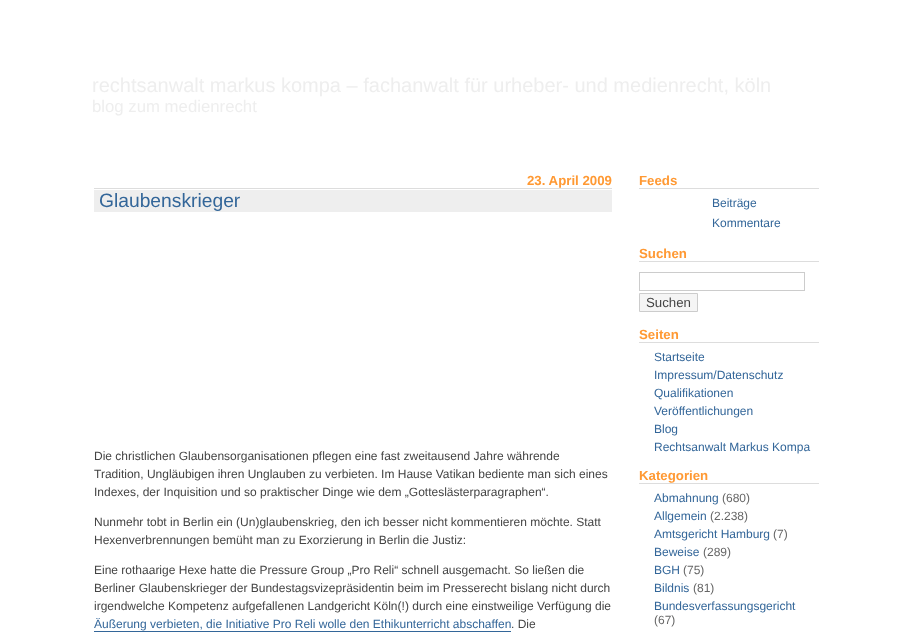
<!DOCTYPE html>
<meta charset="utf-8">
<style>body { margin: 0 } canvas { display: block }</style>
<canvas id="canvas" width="907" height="633"></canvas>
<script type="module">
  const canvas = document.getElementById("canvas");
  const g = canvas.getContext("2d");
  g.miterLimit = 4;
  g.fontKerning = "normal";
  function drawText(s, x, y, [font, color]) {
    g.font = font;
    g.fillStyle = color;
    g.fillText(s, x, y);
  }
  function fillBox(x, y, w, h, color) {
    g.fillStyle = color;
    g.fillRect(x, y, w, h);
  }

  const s1 = ["20px Liberation Sans", "#EEEEEE"];
  const s2 = ["16.75px Liberation Sans", "#EEEEEE"];
  const s3 = ["bold 13.25px Liberation Sans", "#FF9933"];
  const s4 = ["19.25px Liberation Sans", "#336699"];
  const s5 = ["12px Liberation Sans", "#444444"];
  const s6 = ["12px Liberation Sans", "#336699"];
  const s7 = ["13.25px Liberation Sans", "#444444"];
  const s8 = ["12px Liberation Sans", "#666666"];

  fillBox(0, 0, 907, 633, "#FFFFFF");
  drawText("rechtsanwalt markus kompa – fachanwalt für urheber- und medienrecht, köln", 92, 92, s1);
  drawText("blog zum medienrecht", 92, 112, s2);
  fillBox(94, 188, 518, 1, "#DDDDDD");
  drawText("23. April 2009", 527, 185, s3);
  fillBox(94, 190, 518, 22, "#EEEEEE");
  drawText("Glaubenskrieger", 99, 207, s4);
  drawText("Die christlichen Glaubensorganisationen pflegen eine fast zweitausend Jahre währende", 94, 460, s5);
  drawText("Tradition, Ungläubigen ihren Unglauben zu verbieten. Im Hause Vatikan bediente man sich eines", 94, 478, s5);
  drawText("Indexes, der Inquisition und so praktischer Dinge wie dem „Gotteslästerparagraphen“.", 94, 496, s5);
  drawText("Nunmehr tobt in Berlin ein (Un)glaubenskrieg, den ich besser nicht kommentieren möchte. Statt", 94, 526, s5);
  drawText("Hexenverbrennungen bemüht man zu Exorzierung in Berlin die Justiz:", 94, 544, s5);
  drawText("Eine rothaarige Hexe hatte die Pressure Group „Pro Reli“ schnell ausgemacht. So ließen die", 94, 574, s5);
  drawText("Berliner Glaubenskrieger der Bundestagsvizepräsidentin beim im Presserecht bislang nicht durch", 94, 592, s5);
  drawText("irgendwelche Kompetenz aufgefallenen Landgericht Köln(!) durch eine einstweilige Verfügung die", 94, 610, s5);
  drawText("Äußerung verbieten, die Initiative Pro Reli wolle den Ethikunterricht abschaffen", 94, 628, s6);
  fillBox(94, 631, 417, 1, "#336699");
  drawText(". Die", 511, 628, s5);
  fillBox(639, 188, 180, 1, "#DDDDDD");
  drawText("Feeds", 639, 185, s3);
  drawText("Beiträge", 712, 207, s6);
  drawText("Kommentare", 712, 227, s6);
  fillBox(639, 261, 180, 1, "#DDDDDD");
  drawText("Suchen", 639, 258, s3);
  g.strokeStyle = "#CCCCCC";
  g.strokeRect(639.5, 272.5, 165, 18);
  g.fillStyle = "#F5F5F5";
  g.beginPath();
  g.rect(639.5, 293.5, 58, 18);
  g.fill();
  g.stroke();
  drawText("Suchen", 646, 307, s7);
  fillBox(639, 342, 180, 1, "#DDDDDD");
  drawText("Seiten", 639, 339, s3);
  drawText("Startseite", 654, 361, s6);
  drawText("Impressum/Datenschutz", 654, 379, s6);
  drawText("Qualifikationen", 654, 397, s6);
  drawText("Veröffentlichungen", 654, 415, s6);
  drawText("Blog", 654, 433, s6);
  drawText("Rechtsanwalt Markus Kompa", 654, 451, s6);
  fillBox(639, 483, 180, 1, "#DDDDDD");
  drawText("Kategorien", 639, 480, s3);
  drawText("Abmahnung", 654, 502, s6);
  drawText("(680)", 722, 502, s8);
  drawText("Allgemein", 654, 520, s6);
  drawText("(2.238)", 710, 520, s8);
  drawText("Amtsgericht Hamburg", 654, 538, s6);
  drawText("(7)", 773, 538, s8);
  drawText("Beweise", 654, 556, s6);
  drawText("(289)", 703, 556, s8);
  drawText("BGH", 654, 574, s6);
  drawText("(75)", 683, 574, s8);
  drawText("Bildnis", 654, 592, s6);
  drawText("(81)", 693, 592, s8);
  drawText("Bundesverfassungsgericht", 654, 610, s6);
  drawText("(67)", 654, 624, s8);
</script>
